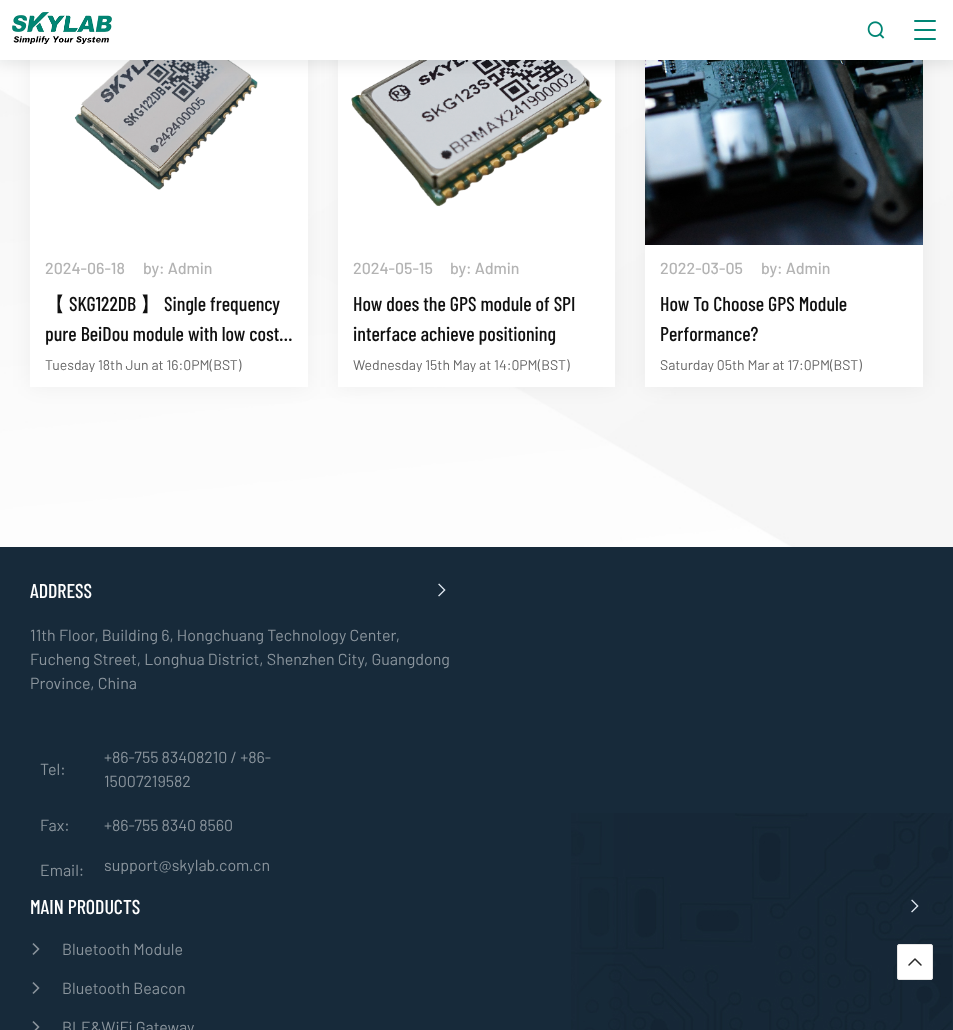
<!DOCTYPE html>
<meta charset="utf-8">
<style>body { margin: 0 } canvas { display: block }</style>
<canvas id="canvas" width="953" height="1030"></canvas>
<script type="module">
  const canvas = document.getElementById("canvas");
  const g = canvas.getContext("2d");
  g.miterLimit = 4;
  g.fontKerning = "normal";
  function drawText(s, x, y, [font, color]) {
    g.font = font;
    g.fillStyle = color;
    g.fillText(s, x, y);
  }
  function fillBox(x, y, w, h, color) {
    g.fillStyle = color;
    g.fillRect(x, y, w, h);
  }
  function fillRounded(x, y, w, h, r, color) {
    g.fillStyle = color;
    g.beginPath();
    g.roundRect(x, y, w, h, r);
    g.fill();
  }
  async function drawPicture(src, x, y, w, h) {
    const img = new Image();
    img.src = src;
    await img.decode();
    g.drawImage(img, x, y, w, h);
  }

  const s1 = ["500 16px Barlow", "#B3B3B3"];
  const s2 = ["500 20px WenQuanYi Zen Hei", "#101010"];
  const s3 = ["500 20px Barlow Condensed", "#101010"];
  const s4 = ["14px Barlow", "#666666"];
  const s5 = ["500 20px Barlow Condensed", "#FFFFFF"];
  const s6 = ["16px Barlow", "#8B959D"];

  fillBox(0, 0, 953, 1030, "#172A3A");
  await drawPicture("pic3.png", 0, 60, 953, 487);
  g.fillStyle = "rgba(0, 14, 12, 0.05)";
  g.filter = "blur(10px)";
  g.beginPath();
  g.rect(30, -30, 278, 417);
  g.fill();
  g.filter = "none";
  fillBox(30, 60, 278, 327, "#FFFFFF");
  await drawPicture("pic4.png", 74, 60, 184, 130);
  g.fillStyle = "rgba(0, 14, 12, 0.05)";
  g.filter = "blur(10px)";
  g.beginPath();
  g.rect(338, -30, 277, 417);
  g.fill();
  g.filter = "none";
  fillBox(338, 60, 277, 327, "#FFFFFF");
  await drawPicture("pic5.png", 351, 60, 251, 147);
  g.fillStyle = "rgba(0, 14, 12, 0.05)";
  g.filter = "blur(10px)";
  g.beginPath();
  g.rect(645, -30, 278, 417);
  g.fill();
  g.filter = "none";
  await drawPicture("pic6.png", 645, 60, 278, 185);
  g.fillStyle = "rgba(0, 6, 11, 0.1)";
  g.filter = "blur(7.5px)";
  g.beginPath();
  g.rect(-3, -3, 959, 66);
  g.fill();
  g.filter = "none";
  fillBox(0, 0, 953, 60, "#FFFFFF");
  await drawPicture("pic1.png", 12, 12, 100, 32);
  await drawPicture("pic2.png", 867, 21, 18, 18);
  fillRounded(914, 20, 22, 2, 1, "#008574");
  fillRounded(914, 29, 22, 2, 1, "#008574");
  fillRounded(914, 38, 22, 2, 1, "#008574");
  drawText("2024-06-18", 45, 274, s1);
  drawText("by: Admin", 143, 274, s1);
  drawText("【", 45, 311, s2);
  drawText("SKG122DB", 69, 311, s3);
  drawText("】", 140, 311, s2);
  drawText("Single frequency", 164, 311, s3);
  drawText("pure BeiDou module with low cost…", 45, 341, s3);
  g.save();
  g.beginPath();
  g.rect(45, 358, 248, 14);
  g.clip();
  drawText("Tuesday 18th Jun at 16:0PM(BST)", 45, 370, s4);
  g.restore();
  drawText("2024-05-15", 353, 274, s1);
  drawText("by: Admin", 450, 274, s1);
  drawText("How does the GPS module of SPI", 353, 311, s3);
  drawText("interface achieve positioning", 353, 341, s3);
  g.save();
  g.beginPath();
  g.rect(353, 358, 247, 14);
  g.clip();
  drawText("Wednesday 15th May at 14:0PM(BST)", 353, 370, s4);
  g.restore();
  fillBox(645, 245, 278, 142, "#FFFFFF");
  drawText("2022-03-05", 660, 274, s1);
  drawText("by: Admin", 761, 274, s1);
  drawText("How To Choose GPS Module", 660, 311, s3);
  drawText("Performance?", 660, 341, s3);
  g.save();
  g.beginPath();
  g.rect(660, 358, 248, 14);
  g.clip();
  drawText("Saturday 05th Mar at 17:0PM(BST)", 660, 370, s4);
  g.restore();
  await drawPicture("pic7.png", 571, 813, 381, 217);
  drawText("ADDRESS", 30, 598, s5);
  await drawPicture("pic8.png", 438, 583, 8, 14);
  drawText("11th Floor, Building 6, Hongchuang Technology Center,", 30, 641, s6);
  drawText("Fucheng Street, Longhua District, Shenzhen City, Guangdong", 30, 665, s6);
  drawText("Province, China", 30, 689, s6);
  drawText("Tel:", 40, 775, s6);
  drawText("+86-755 83408210 / +86-", 104, 763, s6);
  drawText("15007219582", 104, 787, s6);
  drawText("Fax:", 40, 831, s6);
  drawText("+86-755 8340 8560", 104, 831, s6);
  drawText("Email:", 40, 876, s6);
  drawText("support@skylab.com.cn", 104, 871, s6);
  drawText("MAIN PRODUCTS", 30, 914, s5);
  await drawPicture("pic9.png", 911, 899, 8, 14);
  await drawPicture("pic10.png", 32, 943, 8, 12);
  drawText("Bluetooth Module", 62, 955, s6);
  await drawPicture("pic10.png", 32, 982, 8, 12);
  drawText("Bluetooth Beacon", 62, 994, s6);
  await drawPicture("pic11.png", 32, 1021, 8, 9);
  drawText("BLE&WiFi Gateway", 62, 1033, s6);
  g.fillStyle = "#FFFFFF";
  g.beginPath();
  g.roundRect(897.5, 944.5, 35, 35, 1.5);
  g.fill();
  g.strokeStyle = "#E5E5E5";
  g.stroke();
  g.beginPath();
  g.moveTo(921, 965);
  g.lineTo(915, 959);
  g.lineTo(909, 965);
  g.strokeStyle = "#2A2A2A";
  g.lineWidth = 1.5;
  g.lineCap = "round";
  g.lineJoin = "round";
  g.stroke();
</script>
